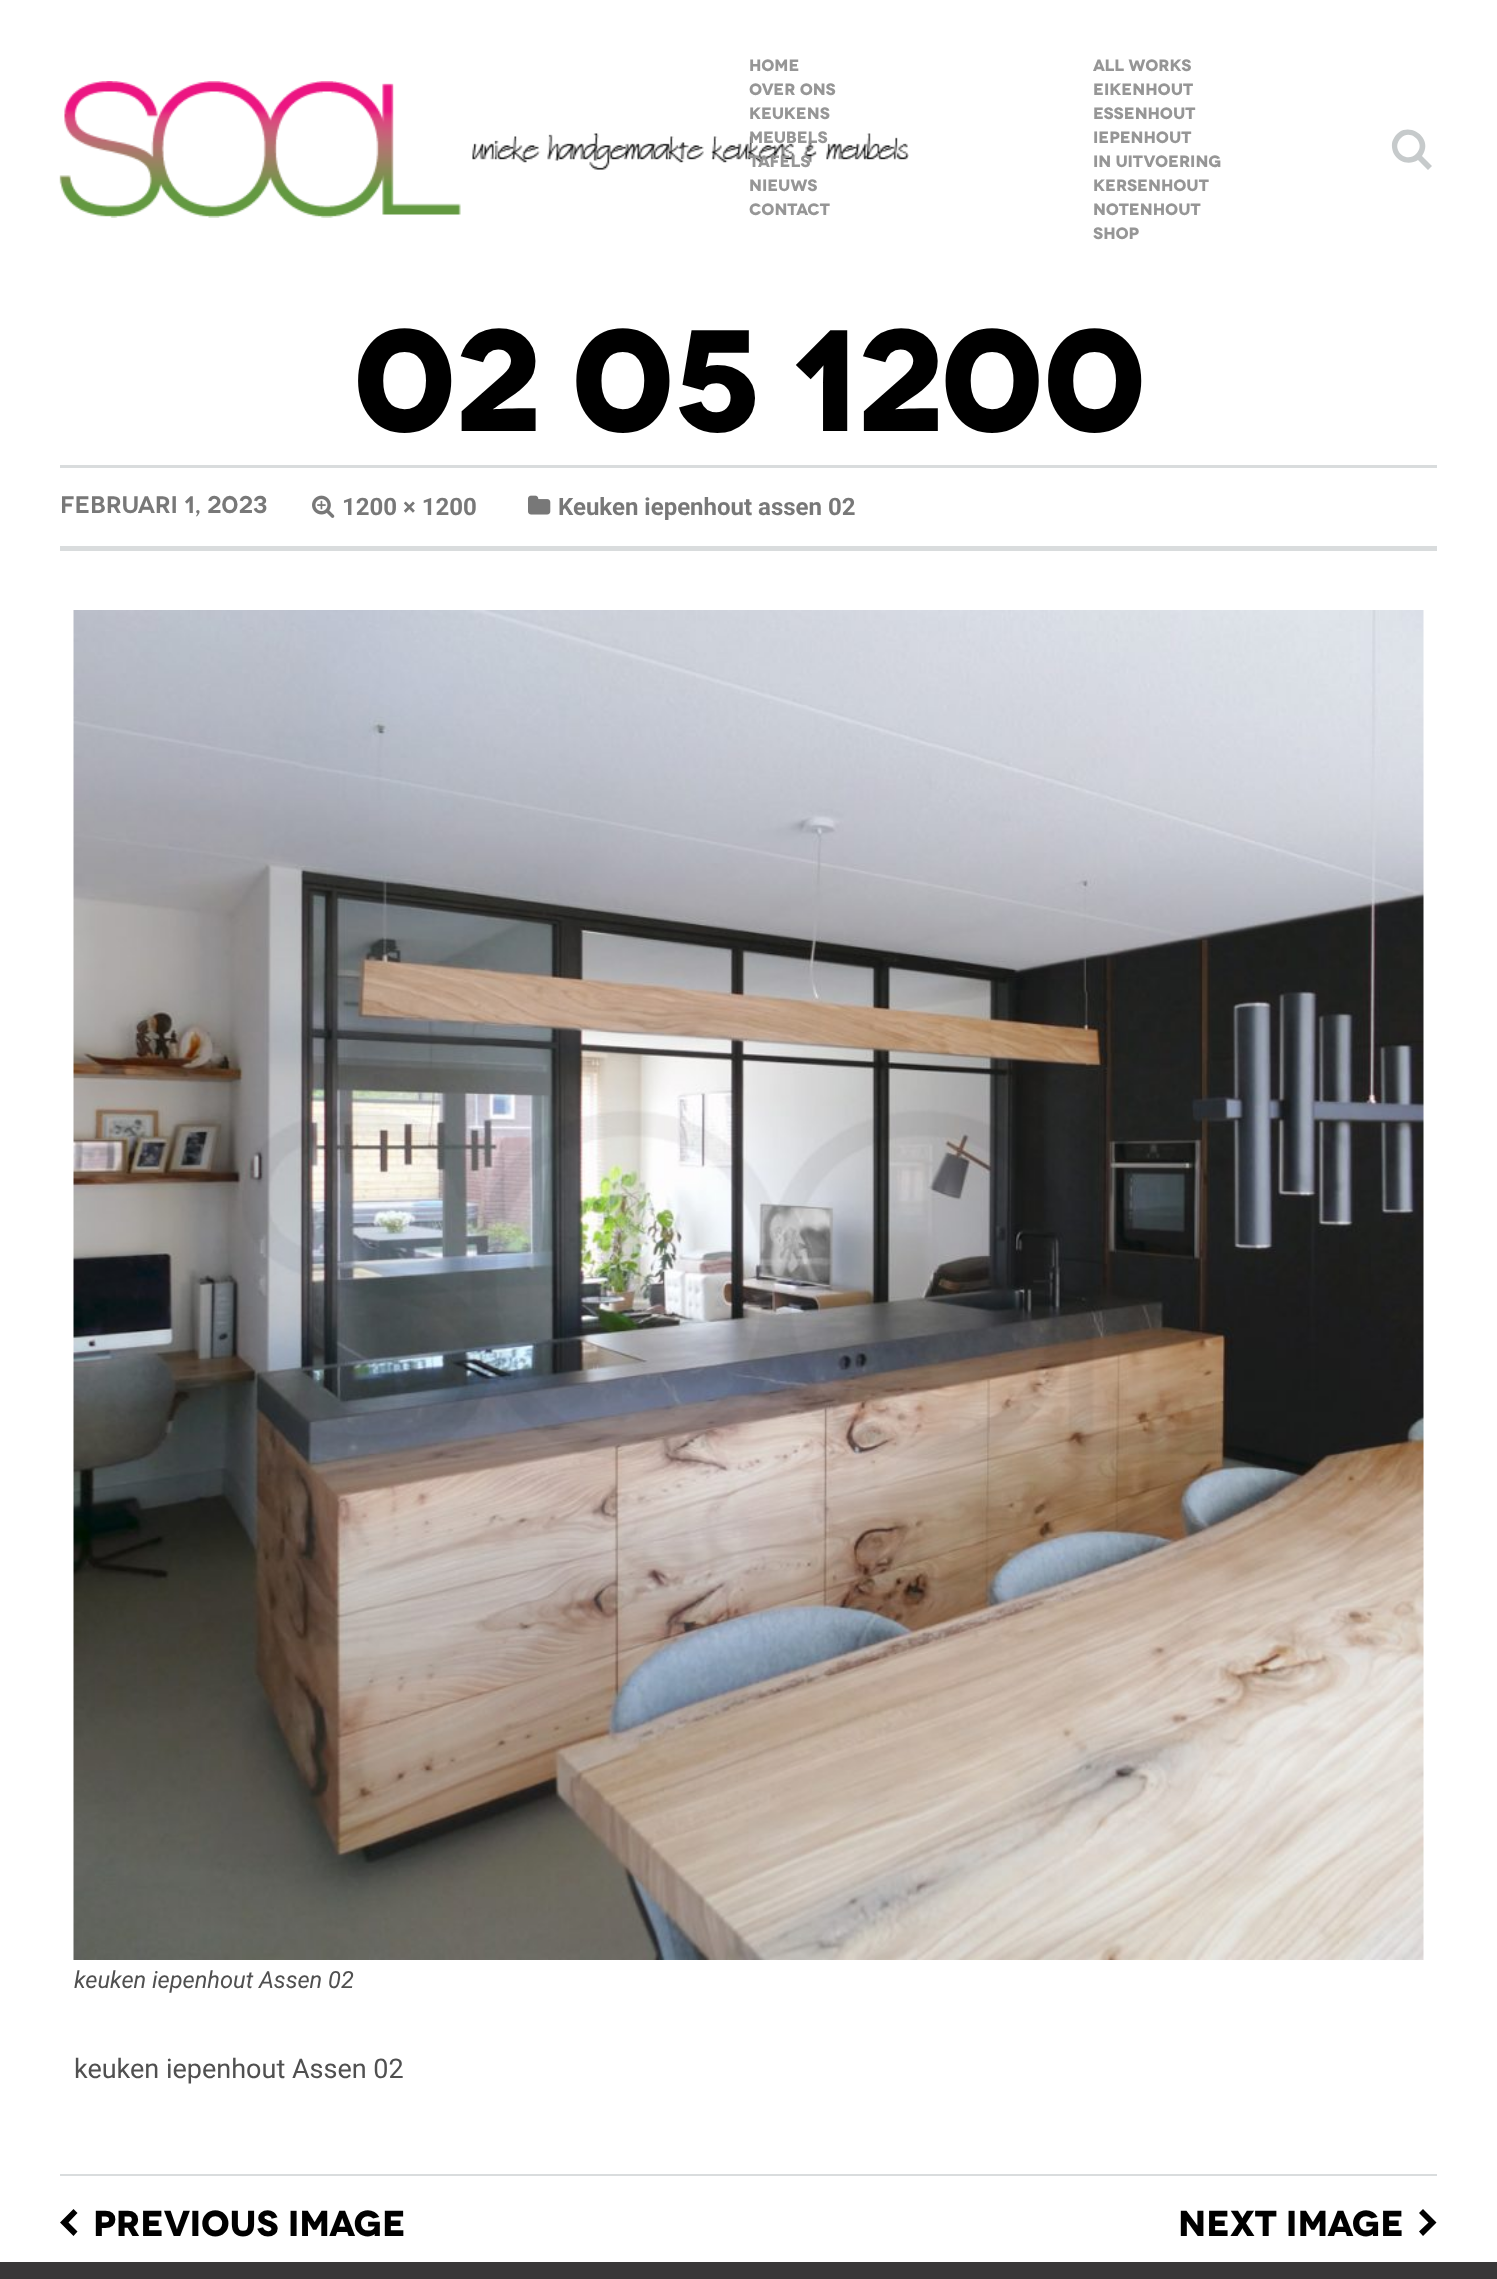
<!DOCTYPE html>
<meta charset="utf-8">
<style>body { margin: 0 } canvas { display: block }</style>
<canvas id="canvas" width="1497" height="2279"></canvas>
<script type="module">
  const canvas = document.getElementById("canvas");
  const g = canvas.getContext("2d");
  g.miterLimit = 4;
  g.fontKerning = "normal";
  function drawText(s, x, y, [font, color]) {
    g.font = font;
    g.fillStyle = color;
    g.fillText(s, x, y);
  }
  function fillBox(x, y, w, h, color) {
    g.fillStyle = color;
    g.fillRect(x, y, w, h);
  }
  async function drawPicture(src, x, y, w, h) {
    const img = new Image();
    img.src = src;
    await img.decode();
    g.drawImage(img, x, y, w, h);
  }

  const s1 = ["bold 16.5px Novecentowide", "#969696"];
  const s2 = ["bold 144px Novecentowide", "#000000"];
  const s3 = ["600 24px Novecentowide", "#787878"];
  const s4 = ["bold 24px Roboto", "#787878"];
  const s5 = ["italic 23.6px Roboto", "#505050"];
  const s6 = ["27px Roboto", "#505050"];
  const s7 = ["bold 36px Novecentowide", "#000000"];

  fillBox(0, 0, 1497, 2279, "#FFFFFF");
  await drawPicture("pic1.png", 59, 81, 850, 137);
  drawText("HOME", 749, 71, s1);
  drawText("OVER ONS", 749, 95, s1);
  drawText("KEUKENS", 749, 119, s1);
  drawText("MEUBELS", 749, 143, s1);
  drawText("TAFELS", 749, 167, s1);
  drawText("NIEUWS", 749, 191, s1);
  drawText("CONTACT", 749, 215, s1);
  drawText("All Works", 1093, 71, s1);
  drawText("eikenhout", 1093, 95, s1);
  drawText("essenhout", 1093, 119, s1);
  drawText("iepenhout", 1093, 143, s1);
  drawText("in uitvoering", 1093, 167, s1);
  drawText("kersenhout", 1093, 191, s1);
  drawText("notenhout", 1093, 215, s1);
  drawText("shop", 1093, 239, s1);
  g.fillStyle = "#C6CACB";
  g.beginPath();
  g.moveTo(1416, 154);
  g.bezierCurveTo(1427, 144, 1411, 128, 1401, 138);
  g.bezierCurveTo(1390, 149, 1406, 164, 1416, 154);
  g.closePath();
  g.moveTo(1422, 156);
  g.lineTo(1432, 166);
  g.lineTo(1428, 170);
  g.lineTo(1418, 160);
  g.bezierCurveTo(1410, 165, 1399, 163, 1394, 154);
  g.bezierCurveTo(1392, 150, 1391, 144, 1393, 140);
  g.bezierCurveTo(1403, 117, 1436, 136, 1422, 156);
  g.closePath();
  g.fill();
  fillBox(60, 465, 1377, 3, "#D9DCDD");
  g.letterSpacing = "-3px";
  drawText("02 05 1200", 353, 431, s2);
  fillBox(60, 546, 1377, 5, "#D9DCDD");
  g.letterSpacing = "0px";
  drawText("FEBRUARI 1, 2023", 60, 513, s3);
  await drawPicture("pic2.png", 312, 495, 23, 23);
  drawText("1200 × 1200", 342, 515, s4);
  await drawPicture("pic3.png", 528, 495, 23, 20);
  drawText("Keuken iepenhout assen 02", 558, 515, s4);
  await drawPicture("pic4.png", 73, 610, 1351, 1350);
  drawText("keuken iepenhout Assen 02", 74, 1988, s5);
  drawText("keuken iepenhout Assen 02", 74, 2078, s6);
  fillBox(60, 2174, 1377, 2, "#D9DCDD");
  g.fillStyle = "#000000";
  g.beginPath();
  g.moveTo(68.5, 2222.5);
  g.lineTo(77.5, 2231.5);
  g.lineTo(73.5, 2236);
  g.lineTo(60, 2222.5);
  g.lineTo(73.5, 2209);
  g.lineTo(77.5, 2213);
  g.closePath();
  g.fill();
  drawText("PREVIOUS IMAGE", 93, 2236, s7);
  drawText("NEXT IMAGE", 1178, 2236, s7);
  g.beginPath();
  g.moveTo(1423, 2209);
  g.lineTo(1436.5, 2222.5);
  g.lineTo(1423, 2236);
  g.lineTo(1419, 2231.5);
  g.lineTo(1428.5, 2222.5);
  g.lineTo(1419, 2213);
  g.closePath();
  g.fill();
  fillBox(0, 2262, 1497, 17, "#393738");
</script>
